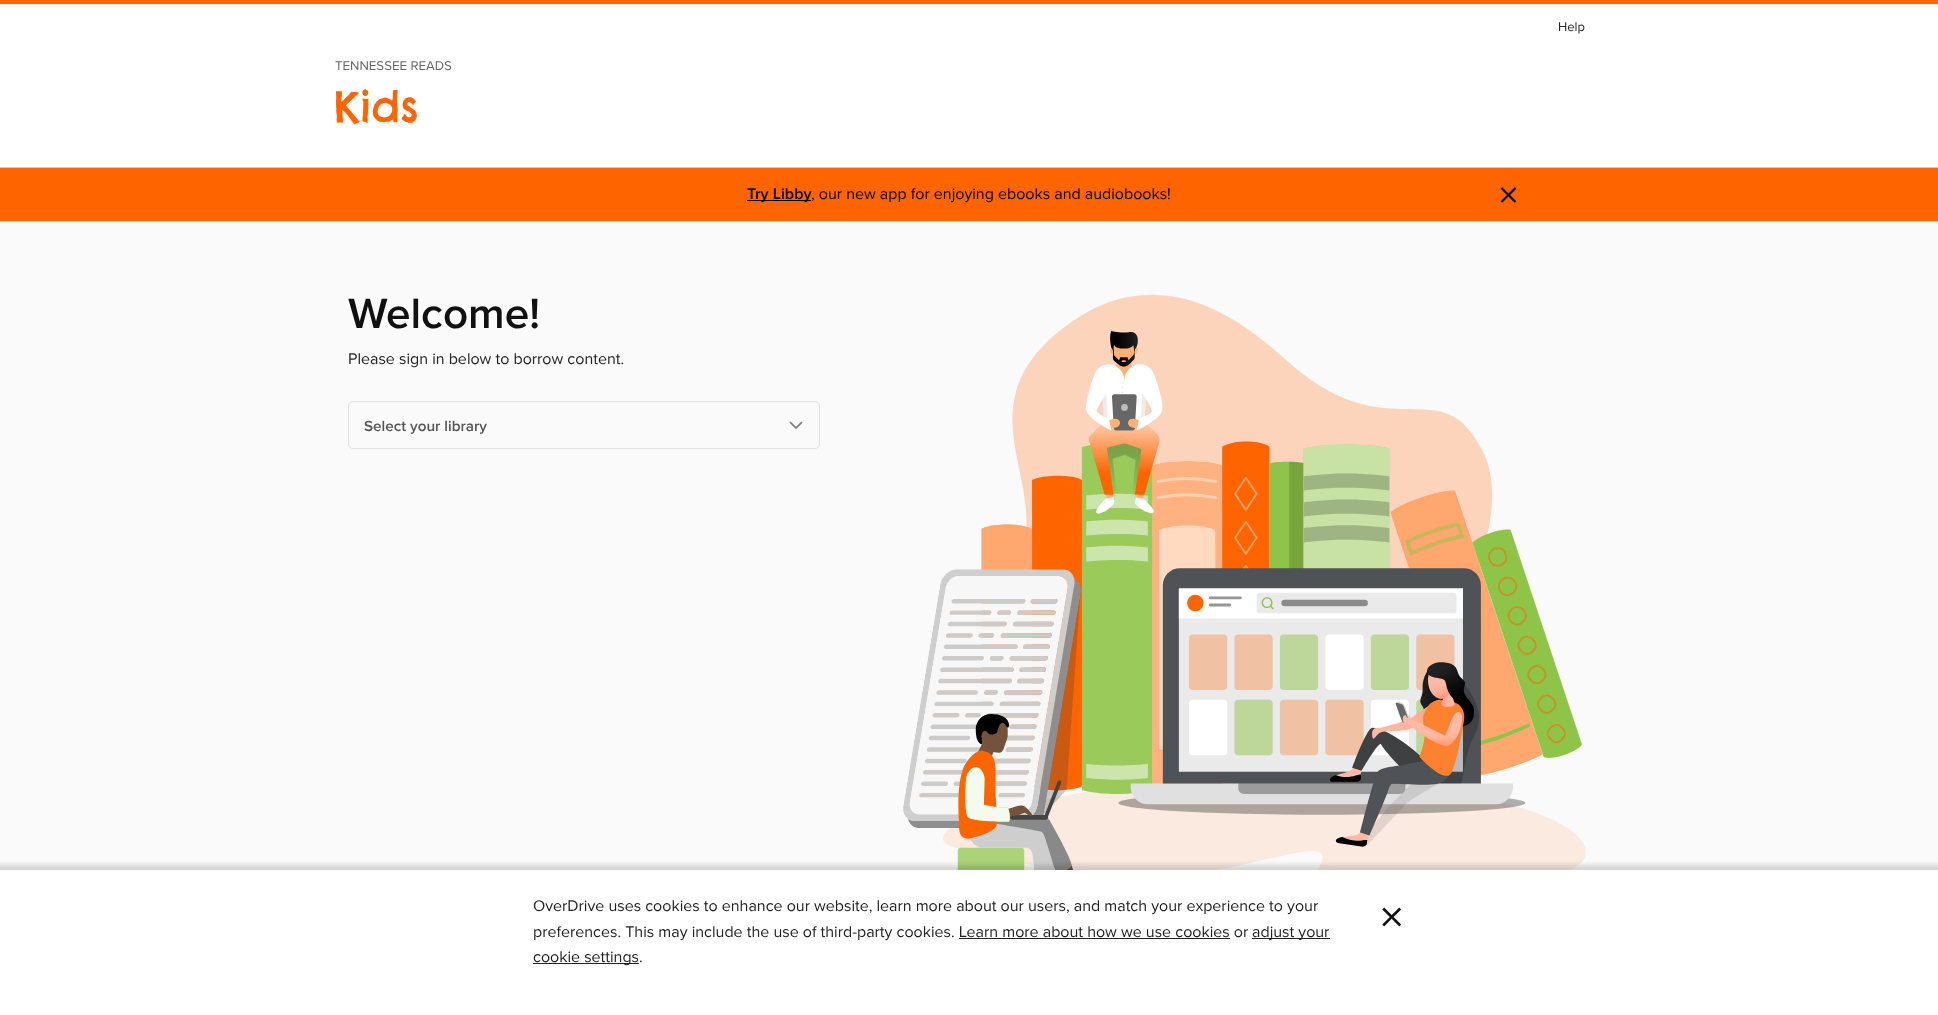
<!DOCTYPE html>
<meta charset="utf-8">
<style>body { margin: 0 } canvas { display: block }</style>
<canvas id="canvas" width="1938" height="1015"></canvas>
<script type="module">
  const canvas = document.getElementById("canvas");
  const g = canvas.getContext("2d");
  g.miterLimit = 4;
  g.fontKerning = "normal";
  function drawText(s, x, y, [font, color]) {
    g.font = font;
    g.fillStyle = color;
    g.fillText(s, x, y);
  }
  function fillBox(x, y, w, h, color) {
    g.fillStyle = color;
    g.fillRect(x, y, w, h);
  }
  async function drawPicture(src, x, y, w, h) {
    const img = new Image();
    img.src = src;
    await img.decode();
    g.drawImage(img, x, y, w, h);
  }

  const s1 = ["13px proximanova", "#222222"];
  const s2 = ["13.25px proximanova", "#666666"];
  const s3 = ["43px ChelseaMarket", "#FE6400"];
  const s4 = ["600 16px Proxima Nova", "#000000"];
  const s5 = ["16px proximanova", "#000000"];
  const s6 = ["42px proximanova", "#000000"];
  const s7 = ["600 44px Proxima Nova", "#111111"];
  const s8 = ["16px proximanova", "#222222"];
  const s9 = ["600 15.25px Proxima Nova", "#555555"];
  const s10 = ["51px proximanova", "#111111"];

  fillBox(0, 0, 1938, 1015, "#FAFAFA");
  fillBox(0, 4, 1938, 163, "#FFFFFF");
  fillBox(0, 0, 1938, 4, "#FE6400");
  fillBox(0, 167, 1938, 1, "#CCCCCC");
  drawText("Help", 1558, 31, s1);
  drawText("TENNESSEE READS", 335, 70, s2);
  drawText("Kids", 334, 122, s3);
  fillBox(0, 168, 1938, 53, "#FE6400");
  fillBox(747, 200, 64, 1, "#000000");
  drawText("Try Libby", 747, 199, s4);
  drawText(", our new app for enjoying ebooks and audiobooks!", 811, 199, s5);
  drawText("×", 1498, 209, s6);
  drawText("Welcome!", 348, 328, s7);
  drawText("Please sign in below to borrow content.", 348, 364, s8);
  g.beginPath();
  g.roundRect(348.5, 401.5, 471, 47, 4.5);
  g.strokeStyle = "#E1E1E1";
  g.stroke();
  drawText("Select your library", 364, 431, s9);
  await drawPicture("pic1.png", 789, 421, 14, 8);
  await drawPicture("pic2.png", 903, 294, 683, 576);
  g.fillStyle = "rgba(0, 0, 0, 0.15)";
  g.filter = "blur(2.5px)";
  g.beginPath();
  g.rect(-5, 865, 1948, 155);
  g.fill();
  g.filter = "none";
  fillBox(0, 870, 1938, 145, "#FFFFFF");
  drawText("OverDrive uses cookies to enhance our website, learn more about our users, and match your experience to your", 533, 911, s8);
  drawText("preferences. This may include the use of third-party cookies. Learn more about how we use cookies or", 533, 937, s8);
  fillBox(959, 938, 271, 1, "#222222");
  fillBox(1252, 938, 78, 1, "#222222");
  drawText("adjust your", 1252, 937, s8);
  fillBox(533, 963, 106, 1, "#222222");
  drawText("cookie settings.", 533, 962, s8);
  drawText("×", 1379, 934, s10);
</script>
